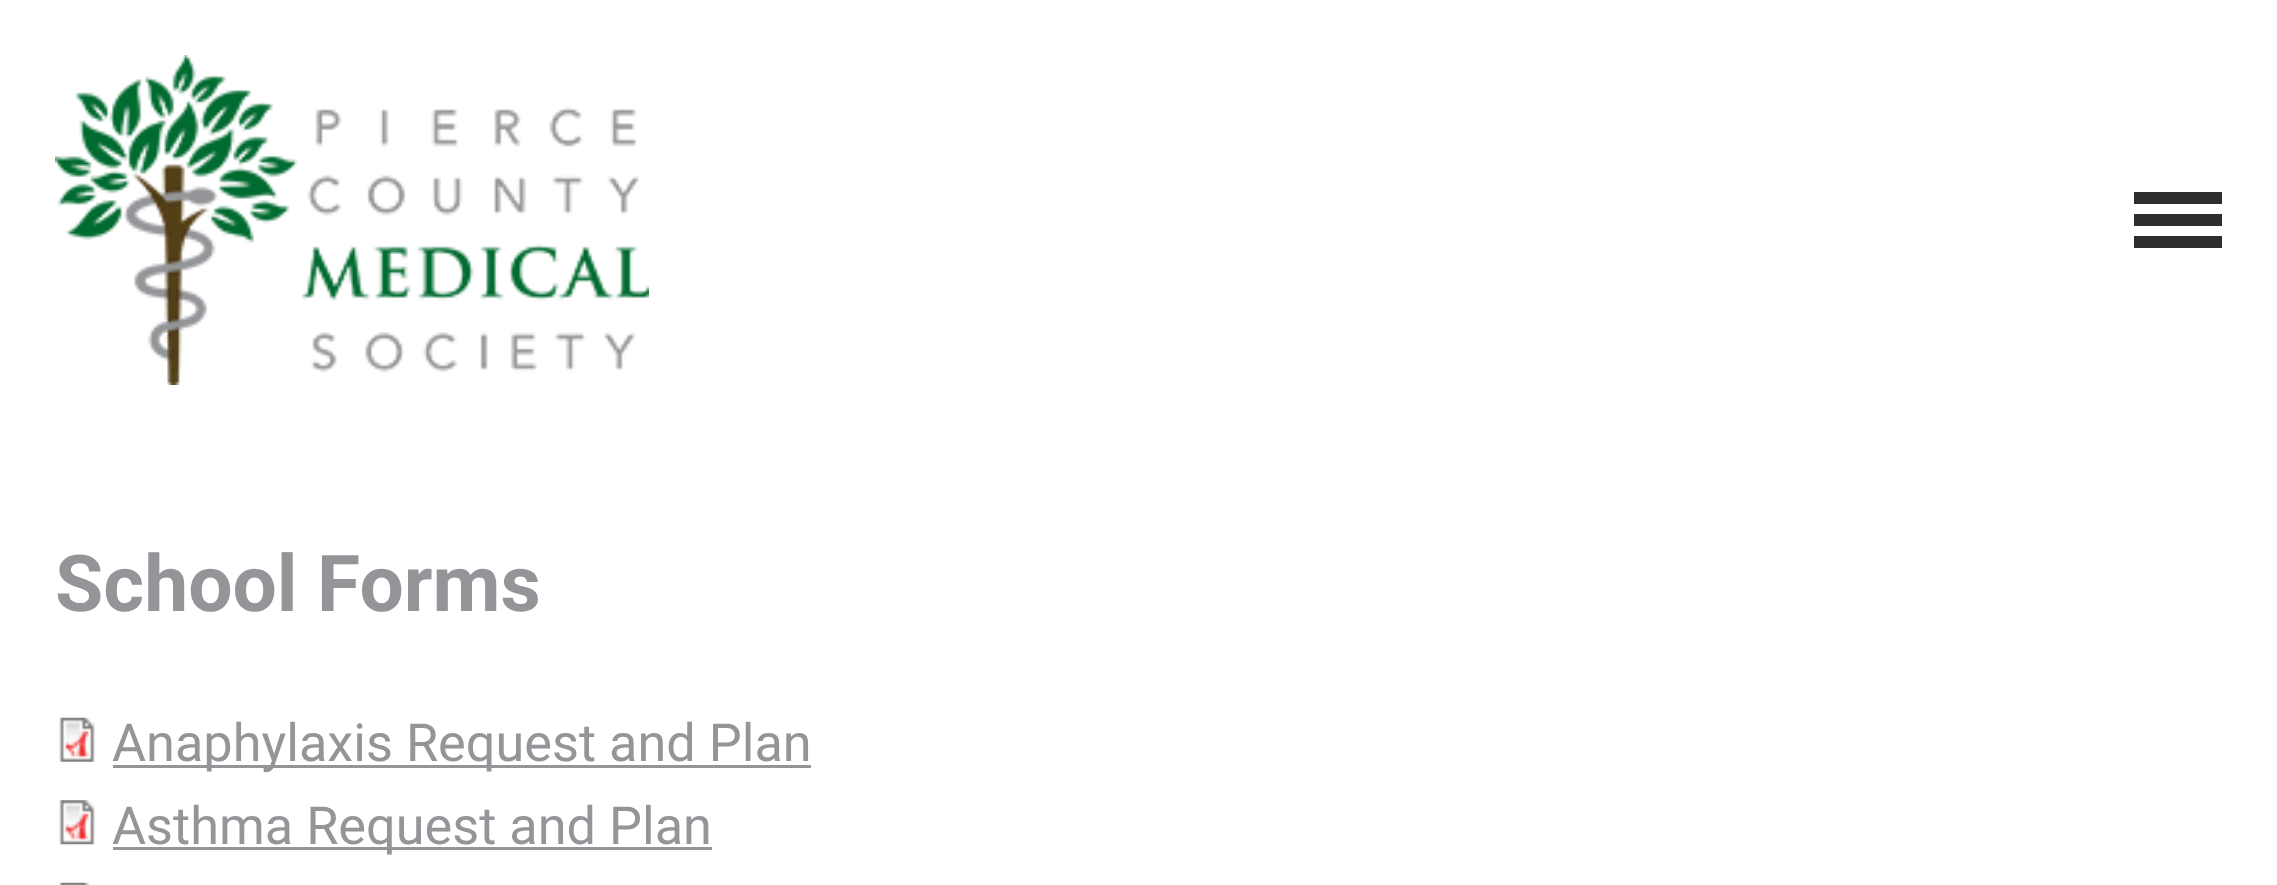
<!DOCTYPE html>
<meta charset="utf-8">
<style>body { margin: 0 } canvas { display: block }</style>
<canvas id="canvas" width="2277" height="885"></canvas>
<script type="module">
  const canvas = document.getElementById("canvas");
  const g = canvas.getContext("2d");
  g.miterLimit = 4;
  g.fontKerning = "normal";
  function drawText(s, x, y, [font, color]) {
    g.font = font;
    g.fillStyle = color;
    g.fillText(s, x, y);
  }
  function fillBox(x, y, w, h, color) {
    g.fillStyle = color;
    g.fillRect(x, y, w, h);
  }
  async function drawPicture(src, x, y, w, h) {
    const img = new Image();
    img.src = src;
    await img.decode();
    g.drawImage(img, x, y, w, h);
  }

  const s1 = ["bold 78.5px Roboto", "#939598"];
  const s2 = ["52.25px Roboto", "#939598"];

  fillBox(0, 0, 2277, 885, "#FFFFFF");
  await drawPicture("pic1.png", 55, 55, 594, 330);
  g.fillStyle = "#2E2E2E";
  g.beginPath();
  g.moveTo(2134, 192);
  g.lineTo(2222, 192);
  g.lineTo(2222, 204);
  g.lineTo(2134, 204);
  g.closePath();
  g.moveTo(2134, 214);
  g.lineTo(2222, 214);
  g.lineTo(2222, 226);
  g.lineTo(2134, 226);
  g.closePath();
  g.moveTo(2134, 236);
  g.lineTo(2222, 236);
  g.lineTo(2222, 248);
  g.lineTo(2134, 248);
  g.closePath();
  g.fill("evenodd");
  drawText("School Forms", 55, 611, s1);
  await drawPicture("pic2.png", 59, 717, 36, 45);
  fillBox(113, 765, 698, 3, "#939598");
  drawText("Anaphylaxis Request and Plan", 112, 761, s2);
  await drawPicture("pic3.png", 59, 800, 36, 45);
  fillBox(113, 847, 599, 3, "#939598");
  drawText("Asthma Request and Plan", 112, 844, s2);
  await drawPicture("pic4.png", 59, 882, 31, 3);
</script>
